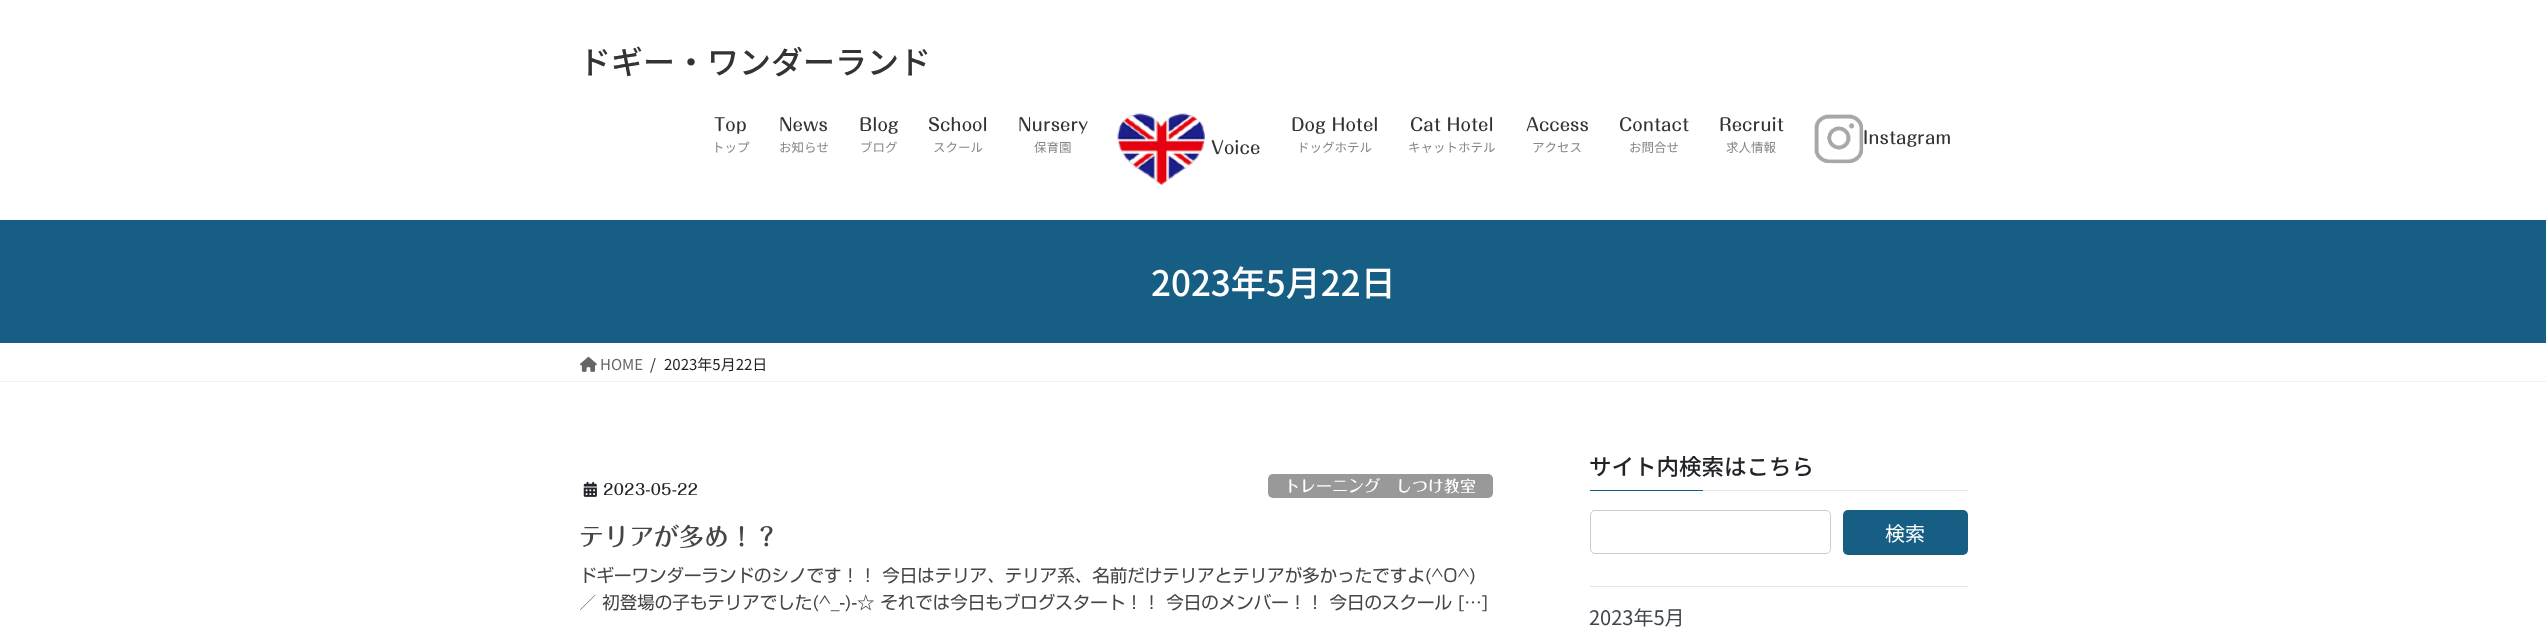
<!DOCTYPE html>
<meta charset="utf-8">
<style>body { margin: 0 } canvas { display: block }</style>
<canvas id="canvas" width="2546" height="636"></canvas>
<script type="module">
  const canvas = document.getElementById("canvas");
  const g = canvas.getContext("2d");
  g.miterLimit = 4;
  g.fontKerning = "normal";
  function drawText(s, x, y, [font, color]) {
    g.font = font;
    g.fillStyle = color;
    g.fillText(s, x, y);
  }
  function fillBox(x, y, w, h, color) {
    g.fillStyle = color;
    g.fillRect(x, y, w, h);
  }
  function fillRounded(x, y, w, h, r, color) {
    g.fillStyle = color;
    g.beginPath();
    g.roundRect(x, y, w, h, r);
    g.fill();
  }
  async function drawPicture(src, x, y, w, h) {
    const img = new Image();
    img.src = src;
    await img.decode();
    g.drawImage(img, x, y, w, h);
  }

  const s1 = ["500 32px Noto Sans JP", "#333333"];
  const s2 = ["500 17.5px 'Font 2'", "#333333"];
  const s3 = ["12.5px Noto Sans JP", "#858585"];
  const s4 = ["500 35px Noto Sans JP", "#FFFFFF"];
  const s5 = ["15px Noto Sans JP", "#666666"];
  const s6 = ["15px Noto Sans JP", "#212529"];
  const s7 = ["500 15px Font", "#212529"];
  const s8 = ["500 16px Font", "#FFFFFF"];
  const s9 = ["500 25px Font", "#464646"];
  const s10 = ["17.5px Font", "#464646"];
  const s11 = ["500 22.5px Noto Sans JP", "#212529"];
  const s12 = ["20px Noto Sans JP", "#FFFFFF"];
  const s13 = ["20px Noto Sans JP", "#40464D"];

  fillBox(0, 0, 2546, 636, "#FFFFFF");
  drawText("ドギー・ワンダーランド", 579, 74, s1);
  drawText("Top", 714, 131, s2);
  drawText("トップ", 712, 152, s3);
  drawText("News", 779, 131, s2);
  drawText("お知らせ", 779, 152, s3);
  drawText("Blog", 859, 131, s2);
  drawText("ブログ", 860, 152, s3);
  drawText("School", 928, 131, s2);
  drawText("スクール", 933, 152, s3);
  drawText("Nursery", 1018, 131, s2);
  drawText("保育園", 1034, 152, s3);
  await drawPicture("pic1.png", 1117, 113, 88, 72);
  drawText("Voice", 1211, 154, s2);
  drawText("Dog Hotel", 1291, 131, s2);
  drawText("ドッグホテル", 1297, 152, s3);
  drawText("Cat Hotel", 1410, 131, s2);
  drawText("キャットホテル", 1408, 152, s3);
  drawText("Access", 1526, 131, s2);
  drawText("アクセス", 1532, 152, s3);
  drawText("Contact", 1619, 131, s2);
  drawText("お問合せ", 1629, 152, s3);
  drawText("Recruit", 1719, 131, s2);
  drawText("求人情報", 1726, 152, s3);
  await drawPicture("pic2.png", 1814, 114, 50, 50);
  drawText("Instagram", 1863, 144, s2);
  fillBox(0, 220, 2546, 123, "#165E83");
  drawText("2023年5月22日", 1151, 296, s4);
  fillBox(0, 381, 2546, 1, "#F2F2F2");
  await drawPicture("pic3.png", 580, 356, 17, 16);
  drawText("HOME", 600, 370, s5);
  drawText("/", 650, 370, s6);
  drawText("2023年5月22日", 664, 370, s6);
  await drawPicture("pic4.png", 583, 481, 14, 16);
  drawText("2023-05-22", 603, 495, s7);
  fillRounded(1268, 474, 225, 24, 5, "#999999");
  drawText("トレーニング　しつけ教室", 1284, 492, s8);
  drawText("テリアが多め！？", 579, 546, s9);
  drawText("ドギーワンダーランドのシノです！！ 今日はテリア、テリア系、名前だけテリアとテリアが多かったですよ(^O^)", 579, 582, s10);
  drawText("／ 初登場の子もテリアでした(^_-)-☆ それでは今日もブログスタート！！ 今日のメンバー！！ 今日のスクール […]", 579, 609, s10);
  fillBox(1703, 490, 265, 1, "#E6E6E6");
  drawText("サイト内検索はこちら", 1589, 475, s11);
  fillBox(1590, 490, 113, 1, "#165E83");
  g.beginPath();
  g.roundRect(1590.5, 510.5, 240, 43, 4.5);
  g.strokeStyle = "#CCCCCC";
  g.stroke();
  fillRounded(1843, 510, 125, 45, 5, "#165E83");
  drawText("検索", 1885, 541, s12);
  fillBox(1590, 586, 378, 1, "#E5E5E5");
  drawText("2023年5月", 1589, 625, s13);
</script>
